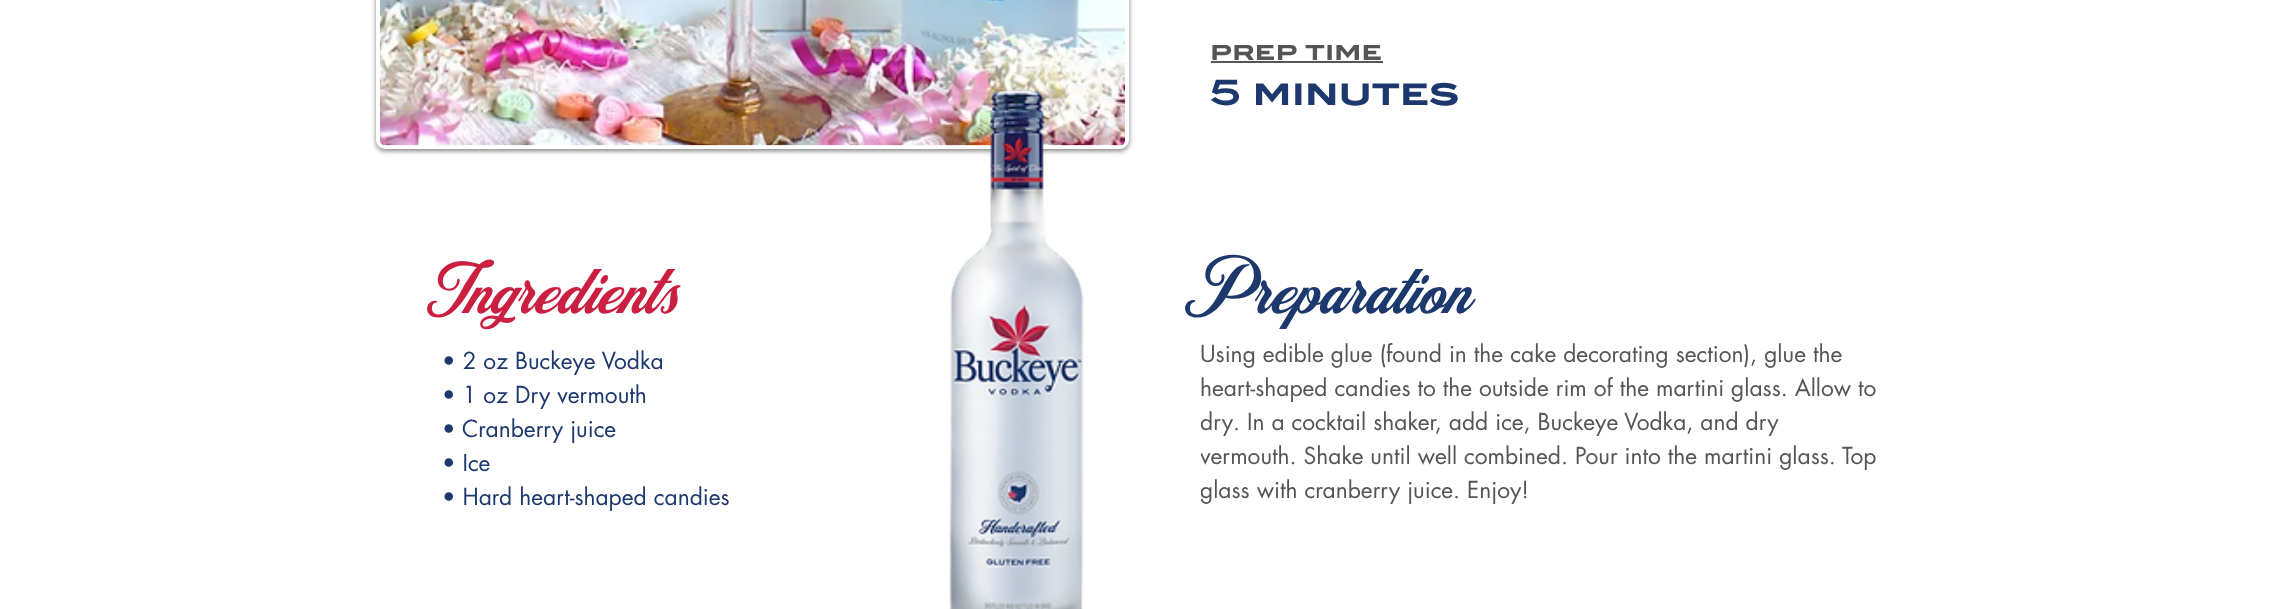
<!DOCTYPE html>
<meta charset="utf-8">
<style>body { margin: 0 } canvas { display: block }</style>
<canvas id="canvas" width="2276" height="609"></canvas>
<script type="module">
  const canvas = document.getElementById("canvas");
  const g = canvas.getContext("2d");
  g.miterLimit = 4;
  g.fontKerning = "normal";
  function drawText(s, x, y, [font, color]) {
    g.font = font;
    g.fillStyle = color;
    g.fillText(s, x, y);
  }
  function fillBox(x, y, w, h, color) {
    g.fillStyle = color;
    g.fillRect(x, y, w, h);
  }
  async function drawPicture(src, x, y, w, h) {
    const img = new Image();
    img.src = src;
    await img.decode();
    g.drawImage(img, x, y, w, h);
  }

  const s1 = ["bold 24.5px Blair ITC", "#555555"];
  const s2 = ["bold 35px Blair ITC", "#1D386D"];
  const s3 = ["50.75px 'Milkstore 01'", "#CA1F41"];
  const s4 = ["50.75px 'Milkstore 01'", "#1D386D"];
  const s5 = ["22.75px futura", "#1D386D"];
  const s6 = ["22.75px futura", "#555555"];

  fillBox(0, 0, 2276, 609, "#FFFFFF");
  g.fillStyle = "rgba(0, 0, 0, 0.5)";
  g.filter = "blur(2.5px)";
  g.beginPath();
  g.roundRect(376, -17, 753, 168, 9);
  g.fill();
  g.filter = "none";
  g.beginPath();
  g.roundRect(378, -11, 749, 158, 7);
  g.strokeStyle = "#FFFFFF";
  g.lineWidth = 4;
  g.stroke();
  await drawPicture("pic1.png", 380, 0, 745, 146);
  drawText("prep time", 1210, 60, s1);
  fillBox(1211, 61, 172, 2, "#555555");
  drawText("5 minutes", 1210, 105, s2);
  await drawPicture("pic2.png", 949, 89, 135, 520);
  drawText("Ingredients", 424, 313, s3);
  drawText("Preparation", 1182, 313, s4);
  drawText("• 2 oz Buckeye Vodka", 442, 369, s5);
  drawText("• 1 oz Dry vermouth", 442, 403, s5);
  drawText("• Cranberry juice", 442, 437, s5);
  drawText("• Ice", 442, 471, s5);
  drawText("• Hard heart-shaped candies", 442, 505, s5);
  drawText("Using edible glue (found in the cake decorating section), glue the", 1200, 362, s6);
  drawText("heart-shaped candies to the outside rim of the martini glass. Allow to", 1200, 396, s6);
  g.save();
  g.beginPath();
  g.rect(1201, 303, 677, 240);
  g.clip();
  drawText("dry. In a cocktail shaker, add ice, Buckeye Vodka, and dry", 1200, 430, s6);
  drawText("vermouth. Shake until well combined. Pour into the martini glass. Top", 1200, 464, s6);
  drawText("glass with cranberry juice. Enjoy!", 1200, 498, s6);
  g.restore();
</script>
